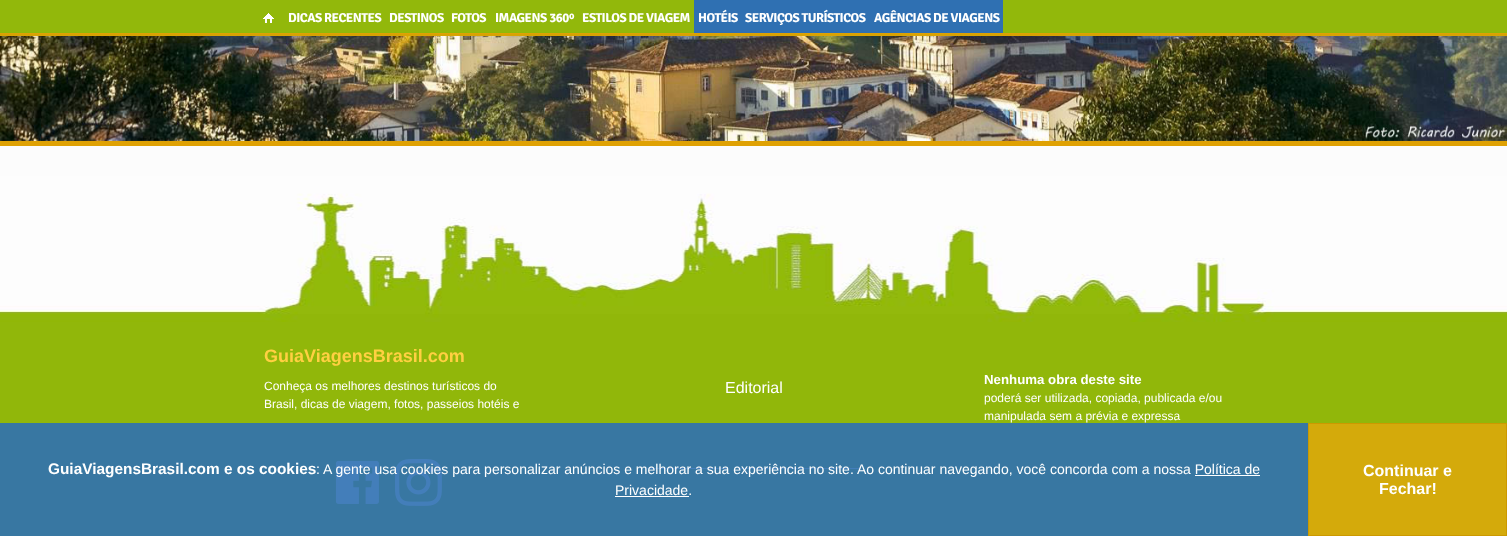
<!DOCTYPE html>
<meta charset="utf-8">
<style>body { margin: 0 } canvas { display: block }</style>
<canvas id="canvas" width="1507" height="536"></canvas>
<script type="module">
  const canvas = document.getElementById("canvas");
  const g = canvas.getContext("2d");
  g.miterLimit = 4;
  g.fontKerning = "normal";
  function drawText(s, x, y, [font, color]) {
    g.font = font;
    g.fillStyle = color;
    g.fillText(s, x, y);
  }
  function fillBox(x, y, w, h, color) {
    g.fillStyle = color;
    g.fillRect(x, y, w, h);
  }
  async function drawPicture(src, x, y, w, h) {
    const img = new Image();
    img.src = src;
    await img.decode();
    g.drawImage(img, x, y, w, h);
  }

  const s1 = ["bold 13px Signika", "#FFFFFF"];
  const s2 = ["bold 18px Liberation Sans", "#FFD042"];
  const s3 = ["12px Liberation Sans", "#FFFFFF"];
  const s4 = ["16px Liberation Sans", "#FFFFFF"];
  const s5 = ["bold 13.25px Liberation Sans", "#FFFFFF"];
  const s6 = ["bold 15.4px Liberation Sans", "#FFFFFF"];
  const s7 = ["14px Liberation Sans", "#FFFFFF"];
  const s8 = ["bold 16px Liberation Sans", "#FFFFFF"];

  fillBox(0, 0, 1507, 536, "#FCFCFC");
  await drawPicture("pic1.png", 0, 0, 1507, 36);
  await drawPicture("pic2.png", 263, 13, 11, 10);
  g.letterSpacing = "-0.5px";
  drawText("DICAS RECENTES", 288, 22, s1);
  drawText("DESTINOS", 389, 22, s1);
  drawText("FOTOS", 451, 22, s1);
  drawText("IMAGENS 360º", 495, 22, s1);
  drawText("ESTILOS DE VIAGEM", 582, 22, s1);
  fillBox(694, 0, 309, 33, "#2F70B2");
  drawText("HOTÉIS", 698, 22, s1);
  drawText("SERVIÇOS TURÍSTICOS", 745, 22, s1);
  drawText("AGÊNCIAS DE VIAGENS", 874, 22, s1);
  fillBox(0, 141, 1507, 5, "#DFA103");
  await drawPicture("pic3.png", 0, 36, 1507, 105);
  fillBox(0, 322, 1507, 214, "#91B70A");
  await drawPicture("pic4.png", 0, 176, 1507, 146);
  g.letterSpacing = "0px";
  drawText("GuiaViagensBrasil.com", 264, 362, s2);
  drawText("Conheça os melhores destinos turísticos do", 264, 390, s3);
  drawText("Brasil, dicas de viagem, fotos, passeios hotéis e", 264, 408, s3);
  await drawPicture("pic5.png", 335, 460, 44, 44);
  await drawPicture("pic6.png", 395, 459, 47, 47);
  drawText("Editorial", 725, 393, s4);
  fillBox(647, 468, 80, 1, "#FFFFFF");
  fillBox(738, 468, 122, 1, "#FFFFFF");
  drawText("Nenhuma obra deste site", 984, 384, s5);
  drawText("poderá ser utilizada, copiada, publicada e/ou", 984, 402, s3);
  drawText("manipulada sem a prévia e expressa", 984, 420, s3);
  fillBox(0, 423, 1308, 113, "rgba(47, 112, 178, 0.9)");
  drawText("GuiaViagensBrasil.com e os cookies", 48, 474, s6);
  drawText(": A gente usa cookies para personalizar anúncios e melhorar a sua experiência no site. Ao continuar navegando, você concorda com a nossa Política de", 316, 474, s7);
  drawText("Privacidade.", 615, 495, s7);
  fillBox(1195, 475, 65, 1, "#FFFFFF");
  fillBox(615, 496, 74, 1, "#FFFFFF");
  g.fillStyle = "#D4AA0B";
  g.beginPath();
  g.rect(1308.5, 423.5, 198, 112);
  g.fill();
  g.strokeStyle = "#CC9900";
  g.stroke();
  drawText("Continuar e", 1363, 476, s8);
  drawText("Fechar!", 1379, 494, s8);
</script>
